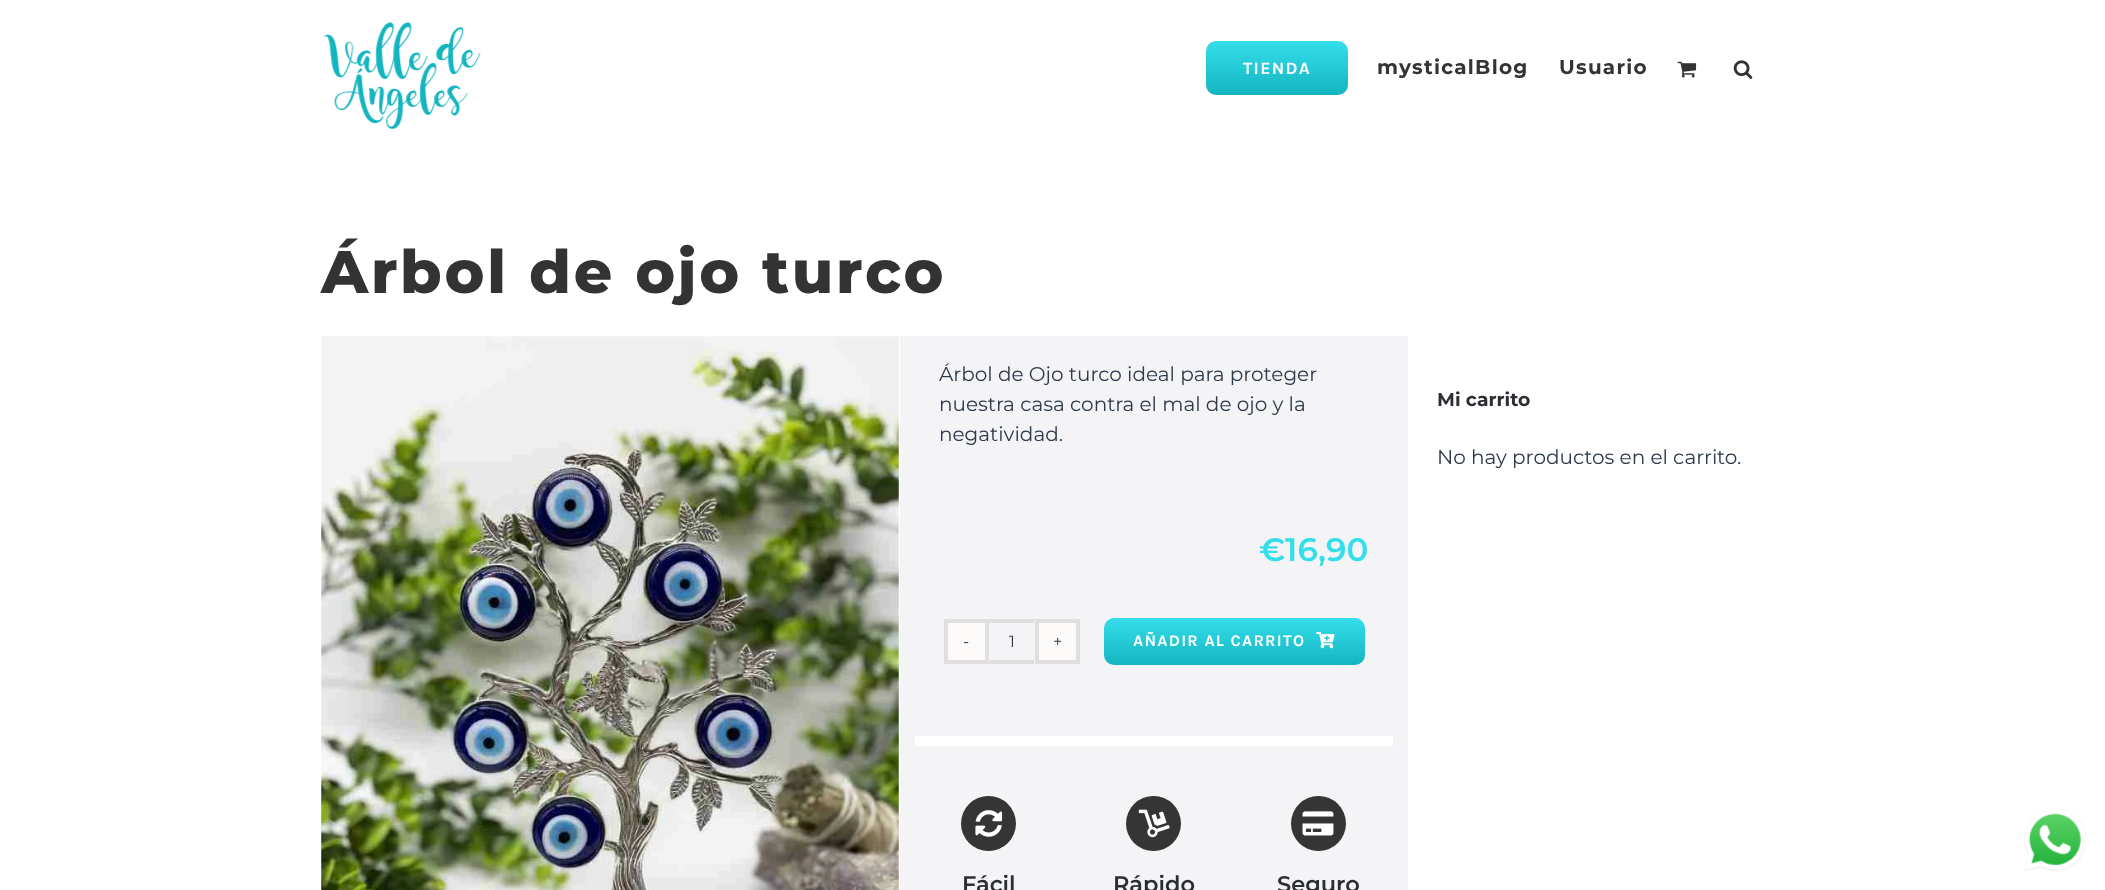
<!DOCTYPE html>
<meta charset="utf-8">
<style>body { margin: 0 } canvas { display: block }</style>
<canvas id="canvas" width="2105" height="890"></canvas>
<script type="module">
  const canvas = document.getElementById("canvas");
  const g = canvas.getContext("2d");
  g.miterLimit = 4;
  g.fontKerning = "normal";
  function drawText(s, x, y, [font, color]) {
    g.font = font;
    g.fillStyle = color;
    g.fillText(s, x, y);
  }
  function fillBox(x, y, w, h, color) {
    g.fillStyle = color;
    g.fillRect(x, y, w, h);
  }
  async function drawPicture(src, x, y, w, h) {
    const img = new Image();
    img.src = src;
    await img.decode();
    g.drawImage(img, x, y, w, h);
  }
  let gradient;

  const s1 = ["bold 17.5px Karla", "#FFFFFF"];
  const s2 = ["bold 20px Montserrat", "#333333"];
  const s3 = ["800 60px Montserrat", "#333333"];
  const s4 = ["20px Montserrat", "#2E394A"];
  const s5 = ["600 32.5px Montserrat", "#34DEEA"];
  const s6 = ["16.25px Montserrat", "#2E394A"];
  const s7 = ["bold 16.25px Karla", "#FFFFFF"];
  const s8 = ["600 22.5px Montserrat", "#2B2E32"];
  const s9 = ["bold 18.75px Montserrat", "#2B2E32"];

  fillBox(0, 0, 2105, 890, "#FFFFFF");
  await drawPicture("pic1.png", 323, 22, 158, 107);
  gradient = g.createLinearGradient(1277, 41, 1277, 95);
  gradient.addColorStop(0, "#34DEEA");
  gradient.addColorStop(1, "#14B5C1");
  g.fillStyle = gradient;
  g.beginPath();
  g.roundRect(1206, 41, 142, 54, 10);
  g.fill();
  g.letterSpacing = "1.25px";
  drawText("TIENDA", 1243, 74, s1);
  drawText("mysticalBlog", 1377, 74, s2);
  drawText("Usuario", 1559, 74, s2);
  await drawPicture("pic2.png", 1677, 61, 20, 17);
  await drawPicture("pic3.png", 1733, 60, 20, 19);
  g.letterSpacing = "2.75px";
  drawText("Árbol de ojo turco", 321, 293, s3);
  await drawPicture("pic4.png", 321, 336, 578, 554);
  fillBox(900, 336, 508, 554, "#F4F4F7");
  g.letterSpacing = "0px";
  drawText("Árbol de Ojo turco ideal para proteger", 939, 381, s4);
  drawText("nuestra casa contra el mal de ojo y la", 939, 411, s4);
  drawText("negatividad.", 939, 441, s4);
  drawText("€", 1259, 561, s5);
  drawText("16,90", 1285, 561, s5);
  g.fillStyle = "#FBFAF9";
  g.beginPath();
  g.rect(946, 621, 41, 41);
  g.fill();
  g.strokeStyle = "#E0DEDE";
  g.lineWidth = 4;
  g.stroke();
  drawText("-", 963, 647, s6);
  fillBox(989, 619, 45, 4, "#E0DEDE");
  fillBox(989, 660, 45, 4, "#E0DEDE");
  drawText("1", 1009, 647, s6);
  g.fillStyle = "#FBFAF9";
  g.beginPath();
  g.rect(1037, 621, 41, 41);
  g.fill();
  g.stroke();
  drawText("+", 1053, 647, s6);
  gradient = g.createLinearGradient(1234, 618, 1234, 665);
  gradient.addColorStop(0, "#34DEEA");
  gradient.addColorStop(1, "#14B5C1");
  g.fillStyle = gradient;
  g.beginPath();
  g.roundRect(1104, 618, 261, 47, 10);
  g.fill();
  g.letterSpacing = "1.25px";
  drawText("AÑADIR AL CARRITO", 1133, 646, s7);
  await drawPicture("pic5.png", 1316, 632, 19, 17);
  fillBox(915, 736, 478, 10, "#FFFFFF");
  g.fillStyle = "#353535";
  g.beginPath();
  g.arc(988.5, 823.5, 27.5, 0, Math.PI * 2);
  g.fill();
  await drawPicture("pic6.png", 975, 810, 28, 27);
  g.letterSpacing = "0px";
  drawText("Fácil", 962, 892, s8);
  g.fillStyle = "#353535";
  g.beginPath();
  g.arc(1153.5, 823.5, 27.5, 0, Math.PI * 2);
  g.fill();
  await drawPicture("pic7.png", 1138, 809, 32, 29);
  drawText("Rápido", 1113, 892, s8);
  g.fillStyle = "#353535";
  g.beginPath();
  g.arc(1318.5, 823.5, 27.5, 0, Math.PI * 2);
  g.fill();
  await drawPicture("pic8.png", 1302, 811, 32, 25);
  drawText("Seguro", 1277, 892, s8);
  drawText("Mi carrito", 1437, 406, s9);
  drawText("No hay productos en el carrito.", 1437, 464, s4);
  await drawPicture("pic9.png", 2024, 809, 62, 62);
</script>
